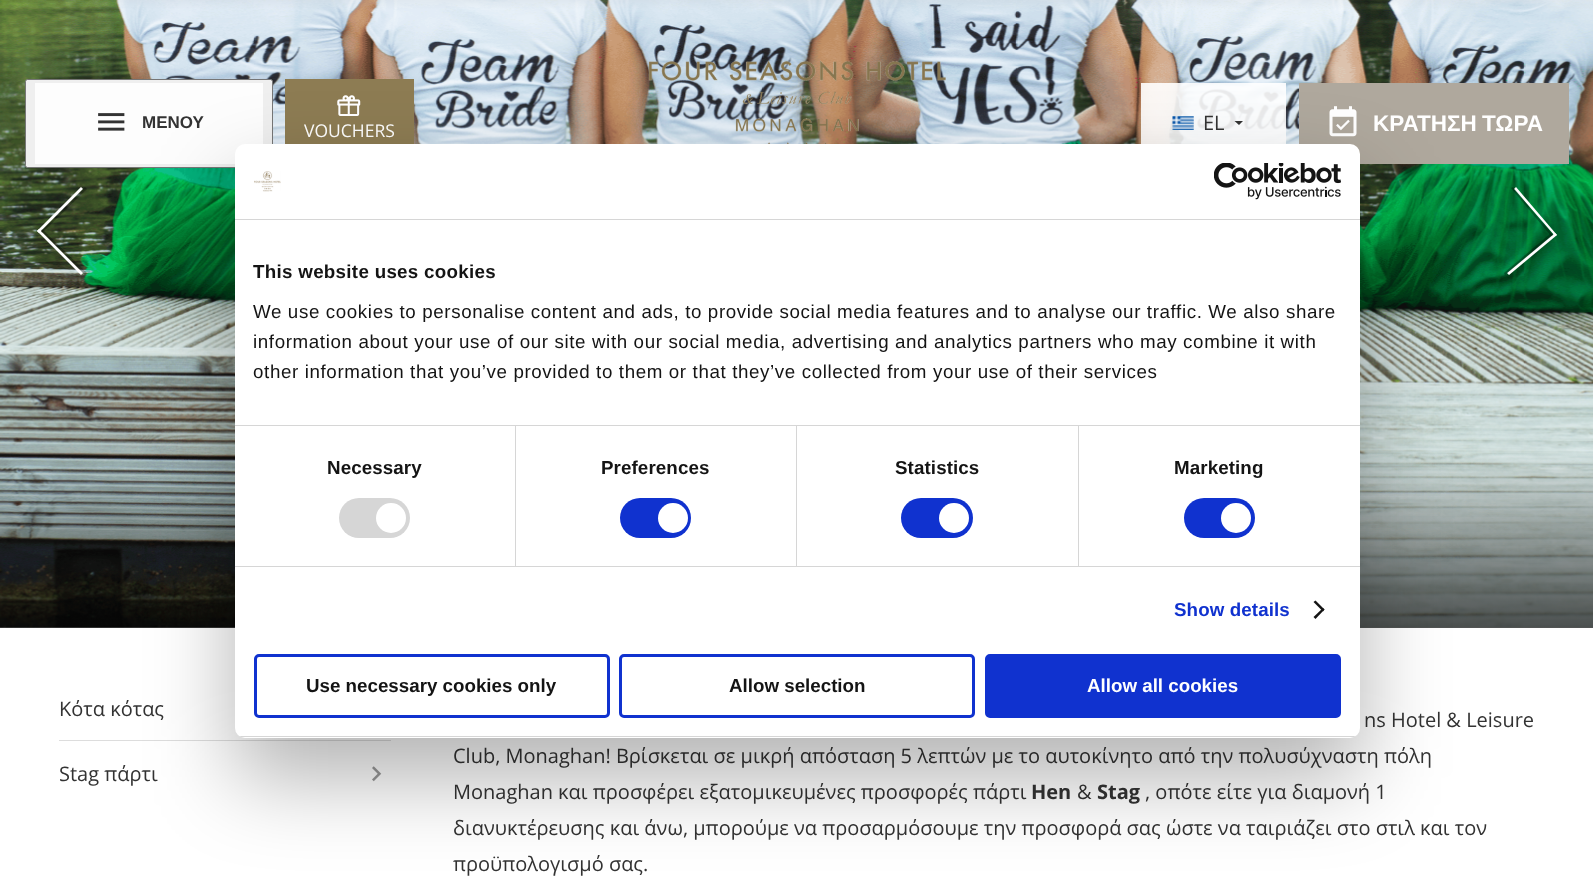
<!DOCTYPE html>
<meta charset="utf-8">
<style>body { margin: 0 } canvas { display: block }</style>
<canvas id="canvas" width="1593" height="879"></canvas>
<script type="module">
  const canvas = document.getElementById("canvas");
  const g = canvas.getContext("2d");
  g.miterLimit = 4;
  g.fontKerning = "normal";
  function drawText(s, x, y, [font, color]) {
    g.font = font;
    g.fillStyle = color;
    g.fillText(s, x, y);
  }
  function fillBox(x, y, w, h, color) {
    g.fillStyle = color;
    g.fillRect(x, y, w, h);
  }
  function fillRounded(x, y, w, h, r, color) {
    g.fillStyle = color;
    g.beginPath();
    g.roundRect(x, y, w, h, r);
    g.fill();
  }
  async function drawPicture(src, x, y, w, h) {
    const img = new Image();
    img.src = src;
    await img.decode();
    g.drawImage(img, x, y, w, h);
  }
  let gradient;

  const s1 = ["bold 17px Liberation Sans", "#333333"];
  const s2 = ["17.5px Open Sans", "#FFFFFF"];
  const s3 = ["20px Open Sans", "#333333"];
  const s4 = ["bold 22.5px Liberation Sans", "#FFFFFF"];
  const s5 = ["bold 20px Open Sans", "#333333"];
  const s6 = ["bold 18.75px Liberation Sans", "#141414"];
  const s7 = ["18.75px Liberation Sans", "#141414"];
  const s8 = ["bold 18.75px Liberation Sans", "#1032CF"];
  const s9 = ["bold 18.75px Liberation Sans", "#FFFFFF"];

  fillBox(0, 0, 1593, 879, "#FFFFFF");
  await drawPicture("pic1.png", 0, 626, 1593, 2);
  await drawPicture("pic2.png", 0, 0, 1593, 627);
  gradient = g.createLinearGradient(797, -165, 797, 628);
  gradient.addColorStop(0, "rgba(0, 0, 0, 0.65)");
  gradient.addColorStop(0.22, "rgba(0, 0, 0, 0)");
  gradient.addColorStop(0.78, "rgba(0, 0, 0, 0)");
  gradient.addColorStop(1, "rgba(0, 0, 0, 0.65)");
  g.fillStyle = gradient;
  g.fillRect(0, 0, 1593, 628);
  g.fillStyle = "#FFFFFF";
  g.beginPath();
  g.moveTo(37, 231);
  g.lineTo(81, 187);
  g.lineTo(83, 189);
  g.lineTo(39, 233);
  g.closePath();
  g.fill();
  g.beginPath();
  g.moveTo(37, 231);
  g.lineTo(39, 229);
  g.lineTo(83, 273);
  g.lineTo(81, 275);
  g.closePath();
  g.fill();
  g.fillStyle = "rgba(0, 0, 0, 0.3)";
  g.beginPath();
  g.moveTo(41, 231);
  g.lineTo(85, 187);
  g.lineTo(87, 189);
  g.lineTo(42, 233);
  g.closePath();
  g.fill();
  g.beginPath();
  g.moveTo(41, 231);
  g.lineTo(42, 229);
  g.lineTo(87, 273);
  g.lineTo(85, 275);
  g.closePath();
  g.fill();
  g.fillStyle = "#FFFFFF";
  g.beginPath();
  g.moveTo(1557, 235);
  g.lineTo(1509, 275);
  g.lineTo(1507, 273);
  g.lineTo(1555, 233);
  g.closePath();
  g.fill();
  g.beginPath();
  g.moveTo(1557, 235);
  g.lineTo(1555, 236);
  g.lineTo(1514, 189);
  g.lineTo(1516, 187);
  g.closePath();
  g.fill();
  g.fillStyle = "rgba(0, 0, 0, 0.3)";
  g.beginPath();
  g.moveTo(1553, 235);
  g.lineTo(1505, 275);
  g.lineTo(1504, 273);
  g.lineTo(1551, 233);
  g.closePath();
  g.fill();
  g.beginPath();
  g.moveTo(1553, 235);
  g.lineTo(1551, 236);
  g.lineTo(1511, 188);
  g.lineTo(1513, 187);
  g.closePath();
  g.fill();
  g.fillStyle = "#EFEFEF";
  g.beginPath();
  g.roundRect(25.5, 79.5, 247, 88, 2);
  g.fill();
  g.strokeStyle = "#767676";
  g.stroke();
  fillBox(35, 83, 228, 81, "#FDFDFD");
  await drawPicture("pic3.png", 98, 113, 27, 18);
  drawText("ΜΕΝΟΥ", 142, 128, s1);
  fillBox(285, 79, 129, 65, "#8D7C53");
  await drawPicture("pic4.png", 337, 95, 24, 21);
  drawText("VOUCHERS", 304, 137, s2);
  await drawPicture("pic5.png", 648, 60, 298, 84);
  fillBox(1141, 83, 145, 61, "rgba(255, 255, 255, 0.9)");
  await drawPicture("pic6.png", 1172, 116, 22, 14);
  drawText("EL", 1203, 130, s3);
  g.beginPath();
  g.moveTo(1234.5, 121);
  g.lineTo(1239, 125);
  g.lineTo(1243, 121);
  g.closePath();
  g.fill();
  fillBox(1299, 83, 270, 81, "#AFA89D");
  await drawPicture("pic7.png", 1329, 106, 28, 31);
  drawText("ΚΡΑΤΗΣΗ", 1373, 131, s4);
  drawText("ΤΩΡΑ", 1482, 131, s4);
  fillBox(59, 740, 332, 1, "#DDDDDD");
  drawText("Κότα κότας", 59, 716, s3);
  drawText("Stag πάρτι", 59, 781, s3);
  await drawPicture("pic8.png", 372, 766, 10, 16);
  drawText("ns Hotel & Leisure", 1364, 727, s3);
  drawText("Club, Monaghan! Βρίσκεται σε μικρή απόσταση 5 λεπτών με το αυτοκίνητο από την πολυσύχναστη πόλη", 453, 763, s3);
  drawText("Monaghan και προσφέρει εξατομικευμένες προσφορές πάρτι", 453, 799, s3);
  drawText("Hen", 1031, 799, s5);
  drawText("&", 1077, 799, s3);
  drawText("Stag", 1097, 799, s5);
  drawText(", οπότε είτε για διαμονή 1", 1145, 799, s3);
  drawText("διανυκτέρευσης και άνω, μπορούμε να προσαρμόσουμε την προσφορά σας ώστε να ταιριάζει στο στιλ και τον", 453, 835, s3);
  drawText("προϋπολογισμό σας.", 453, 871, s3);
  g.fillStyle = "rgba(0, 0, 0, 0.3)";
  g.filter = "blur(42.5px)";
  g.beginPath();
  g.roundRect(235, 184, 1125, 594, 10);
  g.fill();
  g.filter = "none";
  fillRounded(235, 144, 1125, 594, 10, "#FFFFFF");
  fillBox(235, 219, 1125, 1, "#D6D6D6");
  await drawPicture("pic9.png", 254, 171, 27, 21);
  await drawPicture("pic10.png", 1214, 163, 127, 37);
  fillBox(235, 425, 1125, 1, "#D6D6D6");
  g.letterSpacing = "0.3px";
  drawText("This website uses cookies", 253, 278, s6);
  g.letterSpacing = "0.62px";
  drawText("We use cookies to personalise content and ads, to provide social media features and to analyse our traffic. We also share", 253, 318, s7);
  drawText("information about your use of our site with our social media, advertising and analytics partners who may combine it with", 253, 348, s7);
  drawText("other information that you’ve provided to them or that they’ve collected from your use of their services", 253, 378, s7);
  fillBox(235, 566, 1125, 1, "#D6D6D6");
  fillBox(515, 426, 1, 140, "#D6D6D6");
  g.letterSpacing = "0.1px";
  drawText("Necessary", 327, 474, s6);
  fillRounded(339, 498, 71, 40, 20, "#D6D6D6");
  g.fillStyle = "#FFFFFF";
  g.beginPath();
  g.arc(391, 518, 15, 0, Math.PI * 2);
  g.fill();
  fillBox(796, 426, 1, 140, "#D6D6D6");
  drawText("Preferences", 601, 474, s6);
  fillRounded(620, 498, 71, 40, 20, "#1032CF");
  g.fillStyle = "#FFFFFF";
  g.beginPath();
  g.arc(673, 518, 15, 0, Math.PI * 2);
  g.fill();
  fillBox(1078, 426, 1, 140, "#D6D6D6");
  drawText("Statistics", 895, 474, s6);
  fillRounded(901, 498, 72, 40, 20, "#1032CF");
  g.fillStyle = "#FFFFFF";
  g.beginPath();
  g.arc(954, 518, 15, 0, Math.PI * 2);
  g.fill();
  drawText("Marketing", 1174, 474, s6);
  fillRounded(1184, 498, 71, 40, 20, "#1032CF");
  g.fillStyle = "#FFFFFF";
  g.beginPath();
  g.arc(1236, 518, 15, 0, Math.PI * 2);
  g.fill();
  drawText("Show details", 1174, 616, s8);
  g.fillStyle = "#141414";
  g.beginPath();
  g.moveTo(1315.5, 600.5);
  g.lineTo(1324.5, 609.5);
  g.lineTo(1323, 611.5);
  g.lineTo(1313.5, 602);
  g.closePath();
  g.fill();
  g.beginPath();
  g.moveTo(1323, 608);
  g.lineTo(1324.5, 609.5);
  g.lineTo(1315.5, 619);
  g.lineTo(1313.5, 617);
  g.closePath();
  g.fill();
  g.save();
  g.beginPath();
  g.roundRect(235, 144, 1125, 594, 10);
  g.clip();
  fillBox(235, 736, 1125, 1, "#D6D6D6");
  g.restore();
  g.beginPath();
  g.roundRect(255.5, 655.5, 353, 61, 3.5);
  g.strokeStyle = "#1032CF";
  g.lineWidth = 3;
  g.stroke();
  g.letterSpacing = "0px";
  drawText("Use necessary cookies only", 306, 692, s6);
  g.beginPath();
  g.roundRect(620.5, 655.5, 353, 61, 3.5);
  g.stroke();
  drawText("Allow selection", 729, 692, s6);
  g.fillStyle = "#1032CF";
  g.beginPath();
  g.roundRect(986.5, 655.5, 353, 61, 3.5);
  g.fill();
  g.stroke();
  drawText("Allow all cookies", 1087, 692, s9);
</script>
